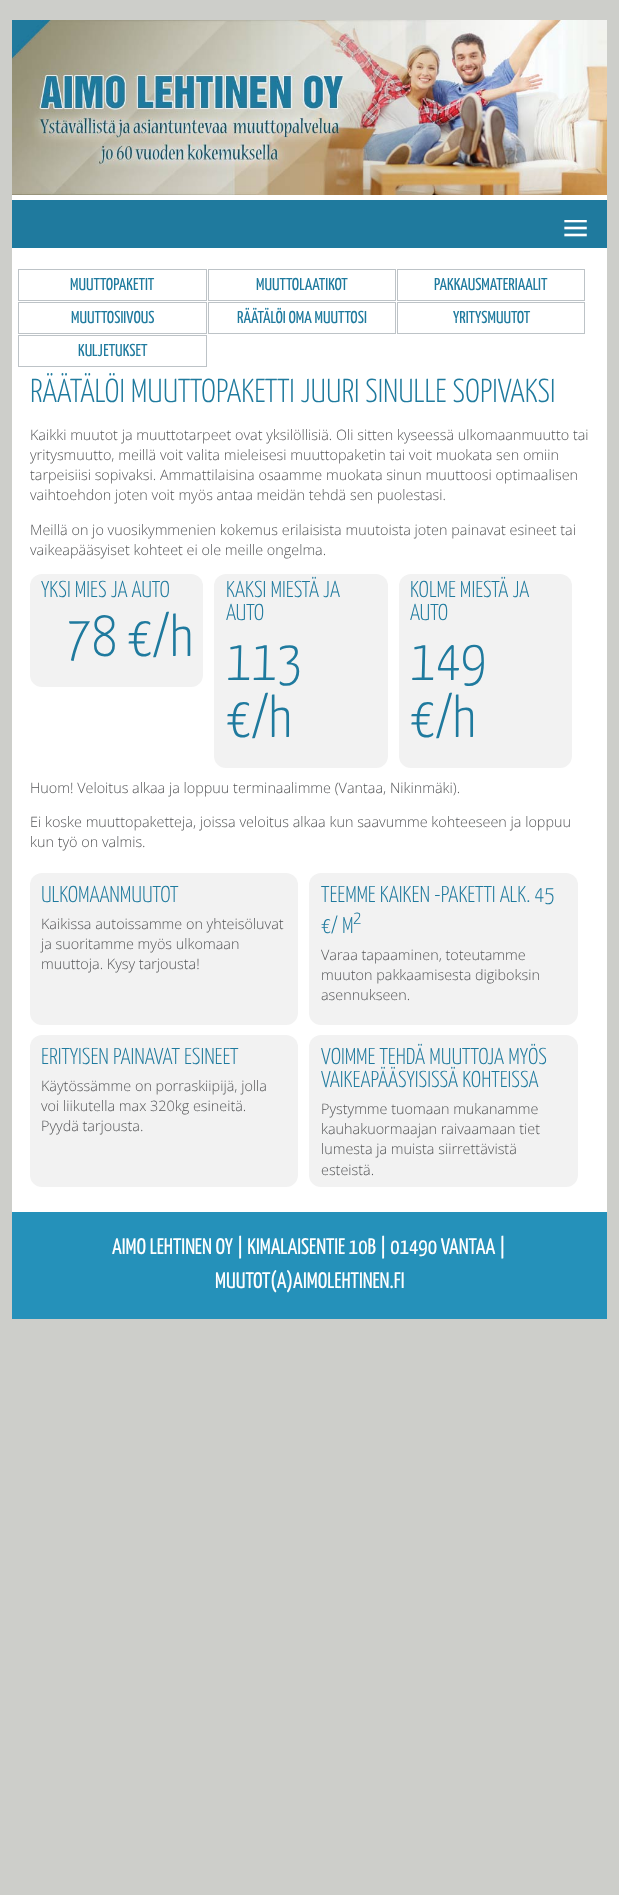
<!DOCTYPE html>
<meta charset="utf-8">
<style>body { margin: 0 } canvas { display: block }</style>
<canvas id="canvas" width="619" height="1895"></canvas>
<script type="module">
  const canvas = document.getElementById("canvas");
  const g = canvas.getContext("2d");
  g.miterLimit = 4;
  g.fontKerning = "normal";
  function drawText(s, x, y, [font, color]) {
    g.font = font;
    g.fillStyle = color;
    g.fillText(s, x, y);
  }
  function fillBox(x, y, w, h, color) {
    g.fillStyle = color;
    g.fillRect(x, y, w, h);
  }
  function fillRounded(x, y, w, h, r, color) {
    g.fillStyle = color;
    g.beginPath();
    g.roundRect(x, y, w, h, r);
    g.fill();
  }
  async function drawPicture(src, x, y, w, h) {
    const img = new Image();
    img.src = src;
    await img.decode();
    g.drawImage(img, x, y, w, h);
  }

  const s1 = ["48px Liberation Serif", "#FFFFFF"];
  const s2 = ["17.25px Yanone Kaffeesatz", "#1F7A9E"];
  const s3 = ["300 33.1px Yanone Kaffeesatz", "#1F7A9E"];
  const s4 = ["300 14.4px Open Sans", "#555658"];
  const s5 = ["300 23px Yanone Kaffeesatz", "#1F7A9E"];
  const s6 = ["300 58px Yanone Kaffeesatz", "#1F7A9E"];
  const s7 = ["300 19px Yanone Kaffeesatz", "#1F7A9E"];
  const s8 = ["22.4px Yanone Kaffeesatz", "#FFFFFF"];

  fillBox(0, 0, 619, 1895, "#CDCECA");
  fillBox(12, 195, 595, 1017, "#FFFFFF");
  await drawPicture("pic1.png", 12, 20, 595, 175);
  fillBox(12, 200, 595, 48, "#1F7A9E");
  drawText("≡", 562, 244, s1);
  g.strokeStyle = "#BDC3C7";
  g.strokeRect(18.5, 269.5, 188, 31);
  drawText("MUUTTOPAKETIT", 70, 290, s2);
  g.strokeRect(208.5, 269.5, 187, 31);
  drawText("MUUTTOLAATIKOT", 256, 290, s2);
  g.strokeRect(397.5, 269.5, 187, 31);
  drawText("PAKKAUSMATERIAALIT", 434, 290, s2);
  g.strokeRect(18.5, 302.5, 188, 31);
  drawText("MUUTTOSIIVOUS", 71, 323, s2);
  g.strokeRect(208.5, 302.5, 187, 31);
  drawText("RÄÄTÄLÖI OMA MUUTTOSI", 237, 323, s2);
  g.strokeRect(397.5, 302.5, 187, 31);
  drawText("YRITYSMUUTOT", 453, 323, s2);
  g.strokeRect(18.5, 335.5, 188, 31);
  drawText("KULJETUKSET", 78, 356, s2);
  drawText("RÄÄTÄLÖI MUUTTOPAKETTI JUURI SINULLE SOPIVAKSI", 30, 402, s3);
  drawText("Kaikki muutot ja muuttotarpeet ovat yksilöllisiä. Oli sitten kyseessä ulkomaanmuutto tai", 30, 440, s4);
  drawText("yritysmuutto, meillä voit valita mieleisesi muuttopaketin tai voit muokata sen omiin", 30, 460, s4);
  drawText("tarpeisiisi sopivaksi. Ammattilaisina osaamme muokata sinun muuttoosi optimaalisen", 30, 480, s4);
  drawText("vaihtoehdon joten voit myös antaa meidän tehdä sen puolestasi.", 30, 500, s4);
  drawText("Meillä on jo vuosikymmenien kokemus erilaisista muutoista joten painavat esineet tai", 30, 535, s4);
  drawText("vaikeapääsyiset kohteet ei ole meille ongelma.", 30, 555, s4);
  fillRounded(30, 574, 173, 113, 12, "#F2F2F2");
  drawText("YKSI MIES JA AUTO", 41, 597, s5);
  drawText("78 €/h", 66, 656, s6);
  fillRounded(214, 574, 174, 194, 12, "#F2F2F2");
  drawText("KAKSI MIESTÄ JA", 226, 597, s5);
  drawText("AUTO", 226, 620, s5);
  drawText("113", 226, 680, s6);
  drawText("€/h", 226, 737, s6);
  fillRounded(399, 574, 173, 194, 12, "#F2F2F2");
  drawText("KOLME MIESTÄ JA", 410, 597, s5);
  drawText("AUTO", 410, 620, s5);
  drawText("149", 410, 680, s6);
  drawText("€/h", 410, 737, s6);
  drawText("Huom! Veloitus alkaa ja loppuu terminaalimme (Vantaa, Nikinmäki).", 30, 793, s4);
  drawText("Ei koske muuttopaketteja, joissa veloitus alkaa kun saavumme kohteeseen ja loppuu", 30, 827, s4);
  drawText("kun työ on valmis.", 30, 847, s4);
  fillRounded(30, 873, 268, 152, 12, "#F2F2F2");
  drawText("ULKOMAANMUUTOT", 41, 902, s5);
  drawText("Kaikissa autoissamme on yhteisöluvat", 41, 929, s4);
  drawText("ja suoritamme myös ulkomaan", 41, 949, s4);
  drawText("muuttoja. Kysy tarjousta!", 41, 969, s4);
  fillRounded(309, 873, 269, 152, 12, "#F2F2F2");
  drawText("TEEMME KAIKEN -PAKETTI ALK. 45", 321, 902, s5);
  drawText("€/ M", 321, 933, s5);
  drawText("2", 353, 924, s7);
  drawText("Varaa tapaaminen, toteutamme", 321, 960, s4);
  drawText("muuton pakkaamisesta digiboksin", 321, 980, s4);
  drawText("asennukseen.", 321, 1000, s4);
  fillRounded(30, 1035, 268, 152, 12, "#F2F2F2");
  drawText("ERITYISEN PAINAVAT ESINEET", 41, 1064, s5);
  drawText("Käytössämme on porraskiipijä, jolla", 41, 1091, s4);
  drawText("voi liikutella max 320kg esineitä.", 41, 1111, s4);
  drawText("Pyydä tarjousta.", 41, 1131, s4);
  fillRounded(309, 1035, 269, 152, 12, "#F2F2F2");
  drawText("VOIMME TEHDÄ MUUTTOJA MYÖS", 321, 1064, s5);
  drawText("VAIKEAPÄÄSYISISSÄ KOHTEISSA", 321, 1087, s5);
  drawText("Pystymme tuomaan mukanamme", 321, 1114, s4);
  drawText("kauhakuormaajan raivaamaan tiet", 321, 1134, s4);
  drawText("lumesta ja muista siirrettävistä", 321, 1154, s4);
  drawText("esteistä.", 321, 1175, s4);
  fillBox(12, 1212, 595, 107, "#2591BA");
  drawText("AIMO LEHTINEN OY | KIMALAISENTIE 10B | 01490 VANTAA |", 112, 1254, s8);
  drawText("MUUTOT(A)AIMOLEHTINEN.FI", 215, 1288, s8);
</script>
